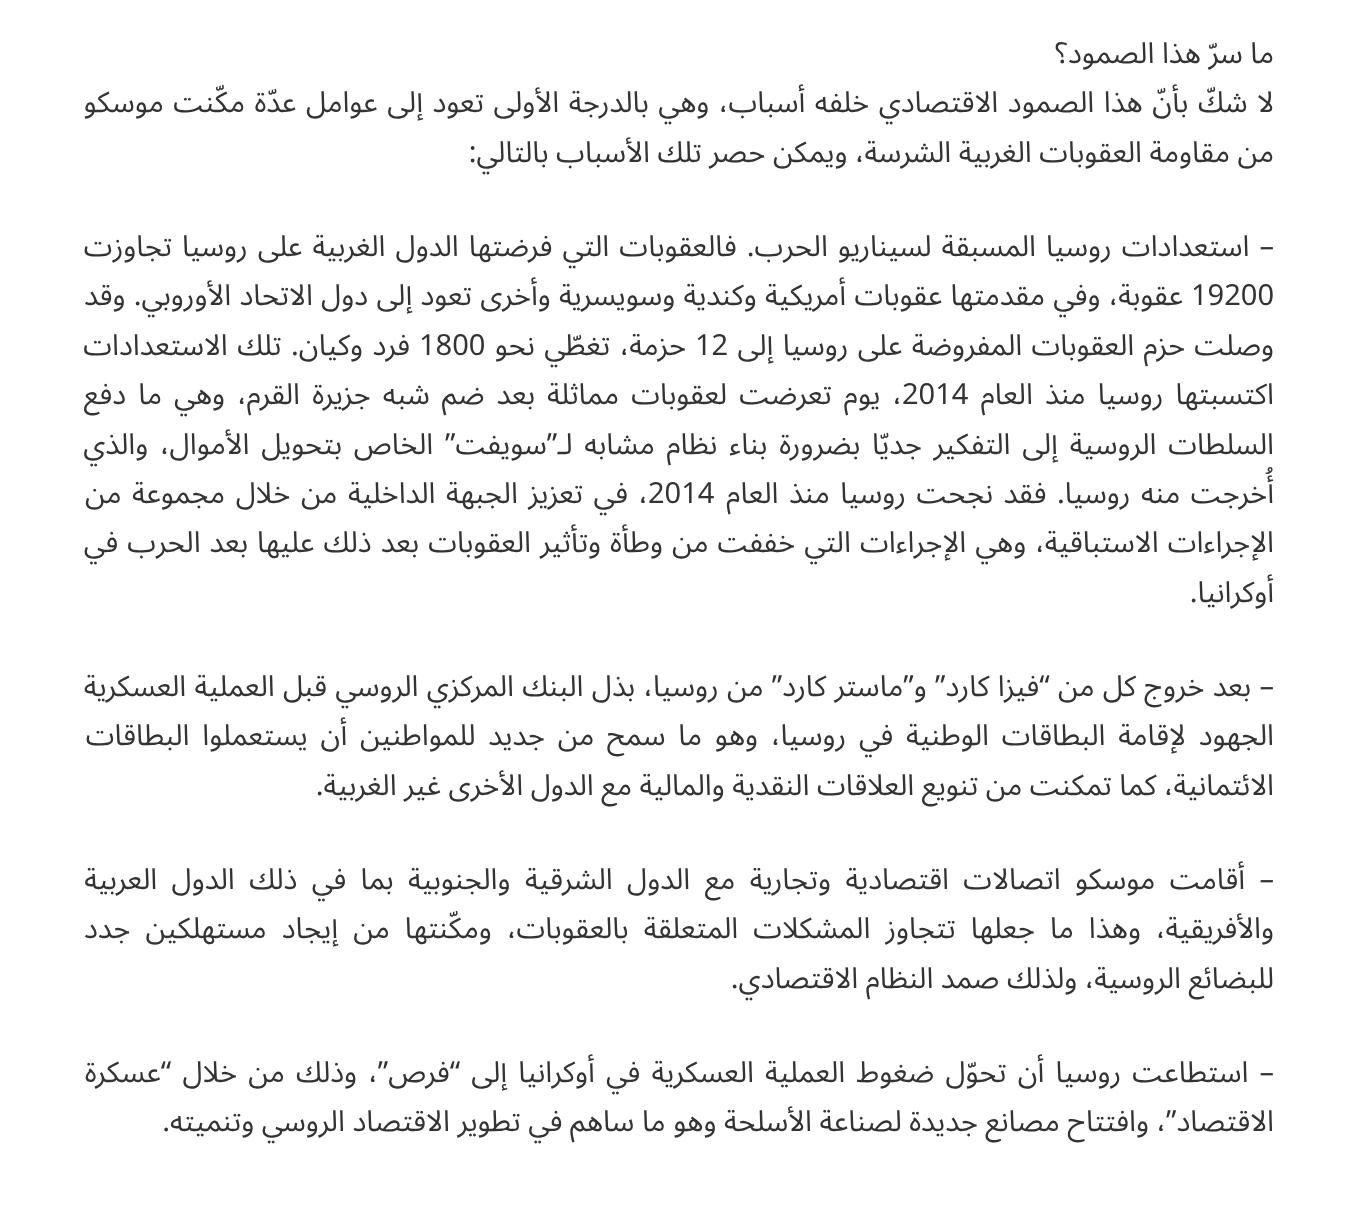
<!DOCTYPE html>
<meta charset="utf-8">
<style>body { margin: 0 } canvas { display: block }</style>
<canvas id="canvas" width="1357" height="1213"></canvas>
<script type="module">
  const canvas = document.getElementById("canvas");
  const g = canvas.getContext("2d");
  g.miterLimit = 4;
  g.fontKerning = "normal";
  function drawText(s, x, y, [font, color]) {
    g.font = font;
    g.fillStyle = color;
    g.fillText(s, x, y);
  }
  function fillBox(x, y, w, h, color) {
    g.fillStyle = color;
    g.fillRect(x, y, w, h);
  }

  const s1 = ["29.05px Noto Sans Arabic", "#333333"];

  fillBox(0, 0, 1357, 1213, "#FFFFFF");
  g.direction = "rtl";
  drawText("ما سرّ هذا الصمود؟", 1274, 63, s1);
  g.wordSpacing = "2px";
  drawText("لا شكّ بأنّ هذا الصمود الاقتصادي خلفه أسباب، وهي بالدرجة الأولى تعود إلى عوامل عدّة مكّنت موسكو", 1274, 112, s1);
  g.wordSpacing = "0px";
  drawText("من مقاومة العقوبات الغربية الشرسة، ويمكن حصر تلك الأسباب بالتالي:", 1274, 162, s1);
  g.wordSpacing = "2.5px";
  drawText("– استعدادات روسيا المسبقة لسيناريو الحرب. فالعقوبات التي فرضتها الدول الغربية على روسيا تجاوزت", 1274, 256, s1);
  g.wordSpacing = "0px";
  g.direction = "ltr";
  drawText("19200", 1191, 305, s1);
  g.wordSpacing = "0.75px";
  g.direction = "rtl";
  drawText("عقوبة، وفي مقدمتها عقوبات أمريكية وكندية وسويسرية وأخرى تعود إلى دول الاتحاد الأوروبي. وقد", 1183, 305, s1);
  g.wordSpacing = "1.75px";
  drawText("وصلت حزم العقوبات المفروضة على روسيا إلى", 1274, 355, s1);
  g.wordSpacing = "0px";
  g.direction = "ltr";
  drawText("12", 695, 355, s1);
  g.wordSpacing = "2px";
  g.direction = "rtl";
  drawText("حزمة، تغطّي نحو", 686, 355, s1);
  g.wordSpacing = "0px";
  g.direction = "ltr";
  drawText("1800", 419, 355, s1);
  g.wordSpacing = "2px";
  g.direction = "rtl";
  drawText("فرد وكيان. تلك الاستعدادات", 410, 355, s1);
  g.wordSpacing = "4.6px";
  drawText("اكتسبتها روسيا منذ العام", 1274, 404, s1);
  g.wordSpacing = "0px";
  g.direction = "ltr";
  drawText("2014", 902, 404, s1);
  g.wordSpacing = "4.6px";
  g.direction = "rtl";
  drawText("، يوم تعرضت لعقوبات مماثلة بعد ضم شبه جزيرة القرم، وهي ما دفع", 902, 404, s1);
  g.wordSpacing = "4.25px";
  drawText("السلطات الروسية إلى التفكير جديّا بضرورة بناء نظام مشابه لـ”سويفت” الخاص بتحويل الأموال، والذي", 1274, 454, s1);
  g.wordSpacing = "3px";
  drawText("أُخرجت منه روسيا. فقد نجحت روسيا منذ العام", 1274, 503, s1);
  g.wordSpacing = "0px";
  g.direction = "ltr";
  drawText("2014", 648, 503, s1);
  g.wordSpacing = "3px";
  g.direction = "rtl";
  drawText("، في تعزيز الجبهة الداخلية من خلال مجموعة من", 648, 503, s1);
  g.wordSpacing = "1.5px";
  drawText("الإجراءات الاستباقية، وهي الإجراءات التي خففت من وطأة وتأثير العقوبات بعد ذلك عليها بعد الحرب في", 1274, 552, s1);
  g.wordSpacing = "0px";
  drawText("أوكرانيا.", 1274, 602, s1);
  g.wordSpacing = "0.75px";
  drawText("– بعد خروج كل من “فيزا كارد” و”ماستر كارد” من روسيا، بذل البنك المركزي الروسي قبل العملية العسكرية", 1274, 696, s1);
  g.wordSpacing = "5.25px";
  drawText("الجهود لإقامة البطاقات الوطنية في روسيا، وهو ما سمح من جديد للمواطنين أن يستعملوا البطاقات", 1274, 745, s1);
  g.wordSpacing = "0px";
  drawText("الائتمانية، كما تمكنت من تنويع العلاقات النقدية والمالية مع الدول الأخرى غير الغربية.", 1274, 795, s1);
  g.wordSpacing = "6.9px";
  drawText("– أقامت موسكو اتصالات اقتصادية وتجارية مع الدول الشرقية والجنوبية بما في ذلك الدول العربية", 1274, 889, s1);
  g.wordSpacing = "7.6px";
  drawText("والأفريقية، وهذا ما جعلها تتجاوز المشكلات المتعلقة بالعقوبات، ومكّنتها من إيجاد مستهلكين جدد", 1274, 938, s1);
  g.wordSpacing = "0px";
  drawText("للبضائع الروسية، ولذلك صمد النظام الاقتصادي.", 1274, 988, s1);
  g.wordSpacing = "3.6px";
  drawText("– استطاعت روسيا أن تحوّل ضغوط العملية العسكرية في أوكرانيا إلى “فرص”، وذلك من خلال “عسكرة", 1274, 1082, s1);
  g.wordSpacing = "0px";
  drawText("الاقتصاد”، وافتتاح مصانع جديدة لصناعة الأسلحة وهو ما ساهم في تطوير الاقتصاد الروسي وتنميته.", 1274, 1131, s1);
</script>
